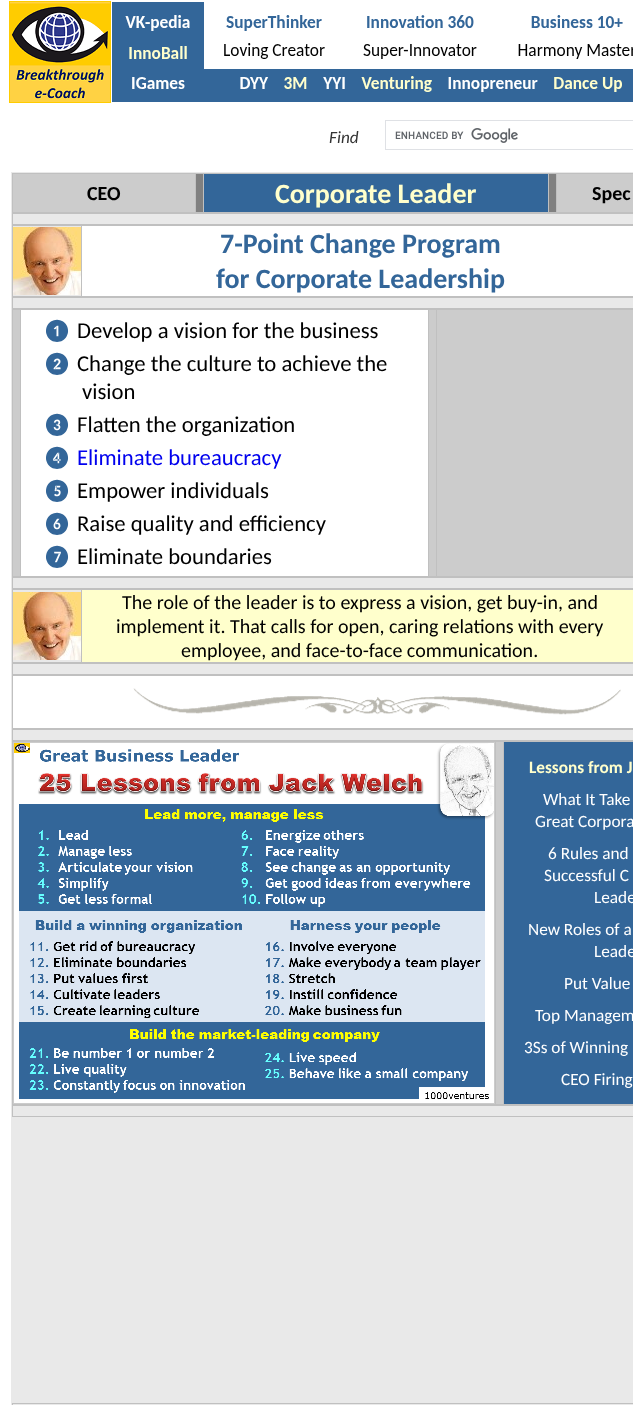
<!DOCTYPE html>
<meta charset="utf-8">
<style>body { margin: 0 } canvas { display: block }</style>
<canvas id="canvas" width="633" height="1405"></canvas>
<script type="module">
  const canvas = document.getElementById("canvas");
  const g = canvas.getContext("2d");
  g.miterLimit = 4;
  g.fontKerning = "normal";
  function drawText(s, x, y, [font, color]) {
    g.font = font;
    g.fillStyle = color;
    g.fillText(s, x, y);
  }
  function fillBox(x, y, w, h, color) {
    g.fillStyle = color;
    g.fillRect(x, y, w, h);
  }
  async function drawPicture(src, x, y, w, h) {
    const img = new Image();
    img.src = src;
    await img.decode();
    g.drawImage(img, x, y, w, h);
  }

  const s1 = ["italic 17.25px Carlito", "#333333"];
  const s2 = ["bold 20px Carlito", "#000000"];
  const s3 = ["bold 28px Carlito", "#FFFFCC"];
  const s4 = ["bold 28px Carlito", "#336699"];
  const s5 = ["22.7px Carlito", "#336699"];
  const s6 = ["22.7px Carlito", "#000000"];
  const s7 = ["22.7px Carlito", "#0000EE"];
  const s8 = ["20px Carlito", "#000000"];
  const s9 = ["bold 17.25px Carlito", "#FFFFCC"];
  const s10 = ["17.25px Carlito", "#FFFFFF"];

  fillBox(0, 0, 633, 1405, "#FFFFFF");
  await drawPicture("pic1.png", 9, 1, 624, 102);
  drawText("Find", 329, 143, s1);
  g.strokeStyle = "#DFE1E5";
  g.strokeRect(385.5, 120.5, 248, 29);
  await drawPicture("pic2.png", 395, 128, 123, 15);
  fillBox(11, 172, 622, 1233, "#E9E9E9");
  fillBox(13, 174, 620, 38, "#CCCCCC");
  fillBox(12, 173, 621, 1, "#C0C0C0");
  fillBox(196, 174, 7, 39, "#808080");
  fillBox(549, 174, 7, 39, "#808080");
  fillBox(12, 212, 621, 2, "#C0C0C0");
  fillBox(12, 173, 1, 40, "#C0C0C0");
  drawText("CEO", 87, 200, s2);
  fillBox(195, 173, 1, 40, "#C0C0C0");
  fillBox(204, 174, 344, 38, "#336699");
  fillBox(203, 173, 1, 40, "#C0C0C0");
  drawText("Corporate Leader", 275, 203, s3);
  fillBox(548, 173, 1, 40, "#C0C0C0");
  fillBox(556, 173, 1, 40, "#C0C0C0");
  drawText("Spec", 592, 200, s2);
  fillBox(12, 224, 621, 2, "#C0C0C0");
  fillBox(12, 213, 1, 12, "#C0C0C0");
  fillBox(12, 296, 621, 2, "#C0C0C0");
  fillBox(12, 225, 1, 72, "#C0C0C0");
  await drawPicture("pic3.png", 13, 227, 68, 68);
  fillBox(82, 226, 551, 70, "#FFFFFF");
  fillBox(81, 225, 1, 72, "#C0C0C0");
  drawText("7-Point Change Program", 220, 253, s4);
  drawText("for Corporate Leadership", 216, 288, s4);
  fillBox(12, 308, 621, 2, "#C0C0C0");
  fillBox(12, 297, 1, 12, "#C0C0C0");
  fillBox(13, 310, 620, 266, "#CCCCCC");
  fillBox(12, 576, 621, 2, "#C0C0C0");
  fillBox(12, 309, 1, 268, "#C0C0C0");
  fillBox(21, 310, 407, 266, "#FFFFFF");
  fillBox(20, 309, 1, 268, "#C0C0C0");
  drawText("❶", 42, 338, s5);
  drawText("Develop a vision for the business", 77, 338, s6);
  drawText("❷", 42, 371, s5);
  drawText("Change the culture to achieve the", 77, 371, s6);
  drawText("vision", 82, 399, s6);
  drawText("❸", 42, 432, s5);
  drawText("Flatten the organization", 77, 432, s6);
  drawText("❹", 42, 465, s5);
  drawText("Eliminate bureaucracy", 77, 465, s7);
  drawText("❺", 42, 498, s5);
  drawText("Empower individuals", 77, 498, s6);
  drawText("❻", 42, 531, s5);
  drawText("Raise quality and efficiency", 77, 531, s6);
  drawText("❼", 42, 564, s5);
  drawText("Eliminate boundaries", 77, 564, s6);
  fillBox(428, 309, 1, 268, "#C0C0C0");
  fillBox(436, 309, 1, 268, "#C0C0C0");
  fillBox(12, 588, 621, 2, "#C0C0C0");
  fillBox(12, 577, 1, 12, "#C0C0C0");
  fillBox(12, 662, 621, 2, "#C0C0C0");
  fillBox(12, 589, 1, 74, "#C0C0C0");
  await drawPicture("pic3.png", 13, 592, 68, 68);
  fillBox(82, 590, 551, 72, "#FFFFCC");
  fillBox(81, 589, 1, 74, "#C0C0C0");
  drawText("The role of the leader is to express a vision, get buy-in, and", 122, 609, s8);
  drawText("implement it. That calls for open, caring relations with every", 116, 633, s8);
  drawText("employee, and face-to-face communication.", 181, 657, s8);
  fillBox(12, 674, 621, 2, "#C0C0C0");
  fillBox(12, 663, 1, 12, "#C0C0C0");
  fillBox(13, 676, 620, 52, "#FFFFFF");
  fillBox(12, 728, 621, 2, "#C0C0C0");
  fillBox(12, 675, 1, 54, "#C0C0C0");
  await drawPicture("pic4.png", 133, 688, 488, 27);
  fillBox(12, 740, 621, 2, "#C0C0C0");
  fillBox(12, 729, 1, 12, "#C0C0C0");
  fillBox(13, 742, 490, 362, "#CCCCCC");
  fillBox(12, 1104, 621, 2, "#C0C0C0");
  fillBox(12, 741, 1, 364, "#C0C0C0");
  await drawPicture("pic5.png", 14, 743, 480, 360);
  fillBox(495, 741, 1, 364, "#C0C0C0");
  fillBox(504, 742, 129, 362, "#336699");
  fillBox(503, 741, 1, 364, "#C0C0C0");
  drawText("Lessons from J", 529, 773, s9);
  drawText("What It Take", 543, 805, s10);
  drawText("Great Corpora", 535, 827, s10);
  drawText("6 Rules and", 548, 859, s10);
  drawText("Successful C", 544, 881, s10);
  drawText("Leade", 594, 903, s10);
  drawText("New Roles of a", 528, 935, s10);
  drawText("Leade", 594, 957, s10);
  drawText("Put Value", 564, 989, s10);
  drawText("Top Managem", 535, 1021, s10);
  drawText("3Ss of Winning", 524, 1053, s10);
  drawText("CEO Firing", 561, 1085, s10);
  fillBox(12, 1116, 621, 1, "#C0C0C0");
  fillBox(12, 1105, 1, 12, "#C0C0C0");
  fillBox(12, 1403, 621, 1, "#C0C0C0");
  fillBox(12, 1403, 1, 2, "#C0C0C0");
</script>
